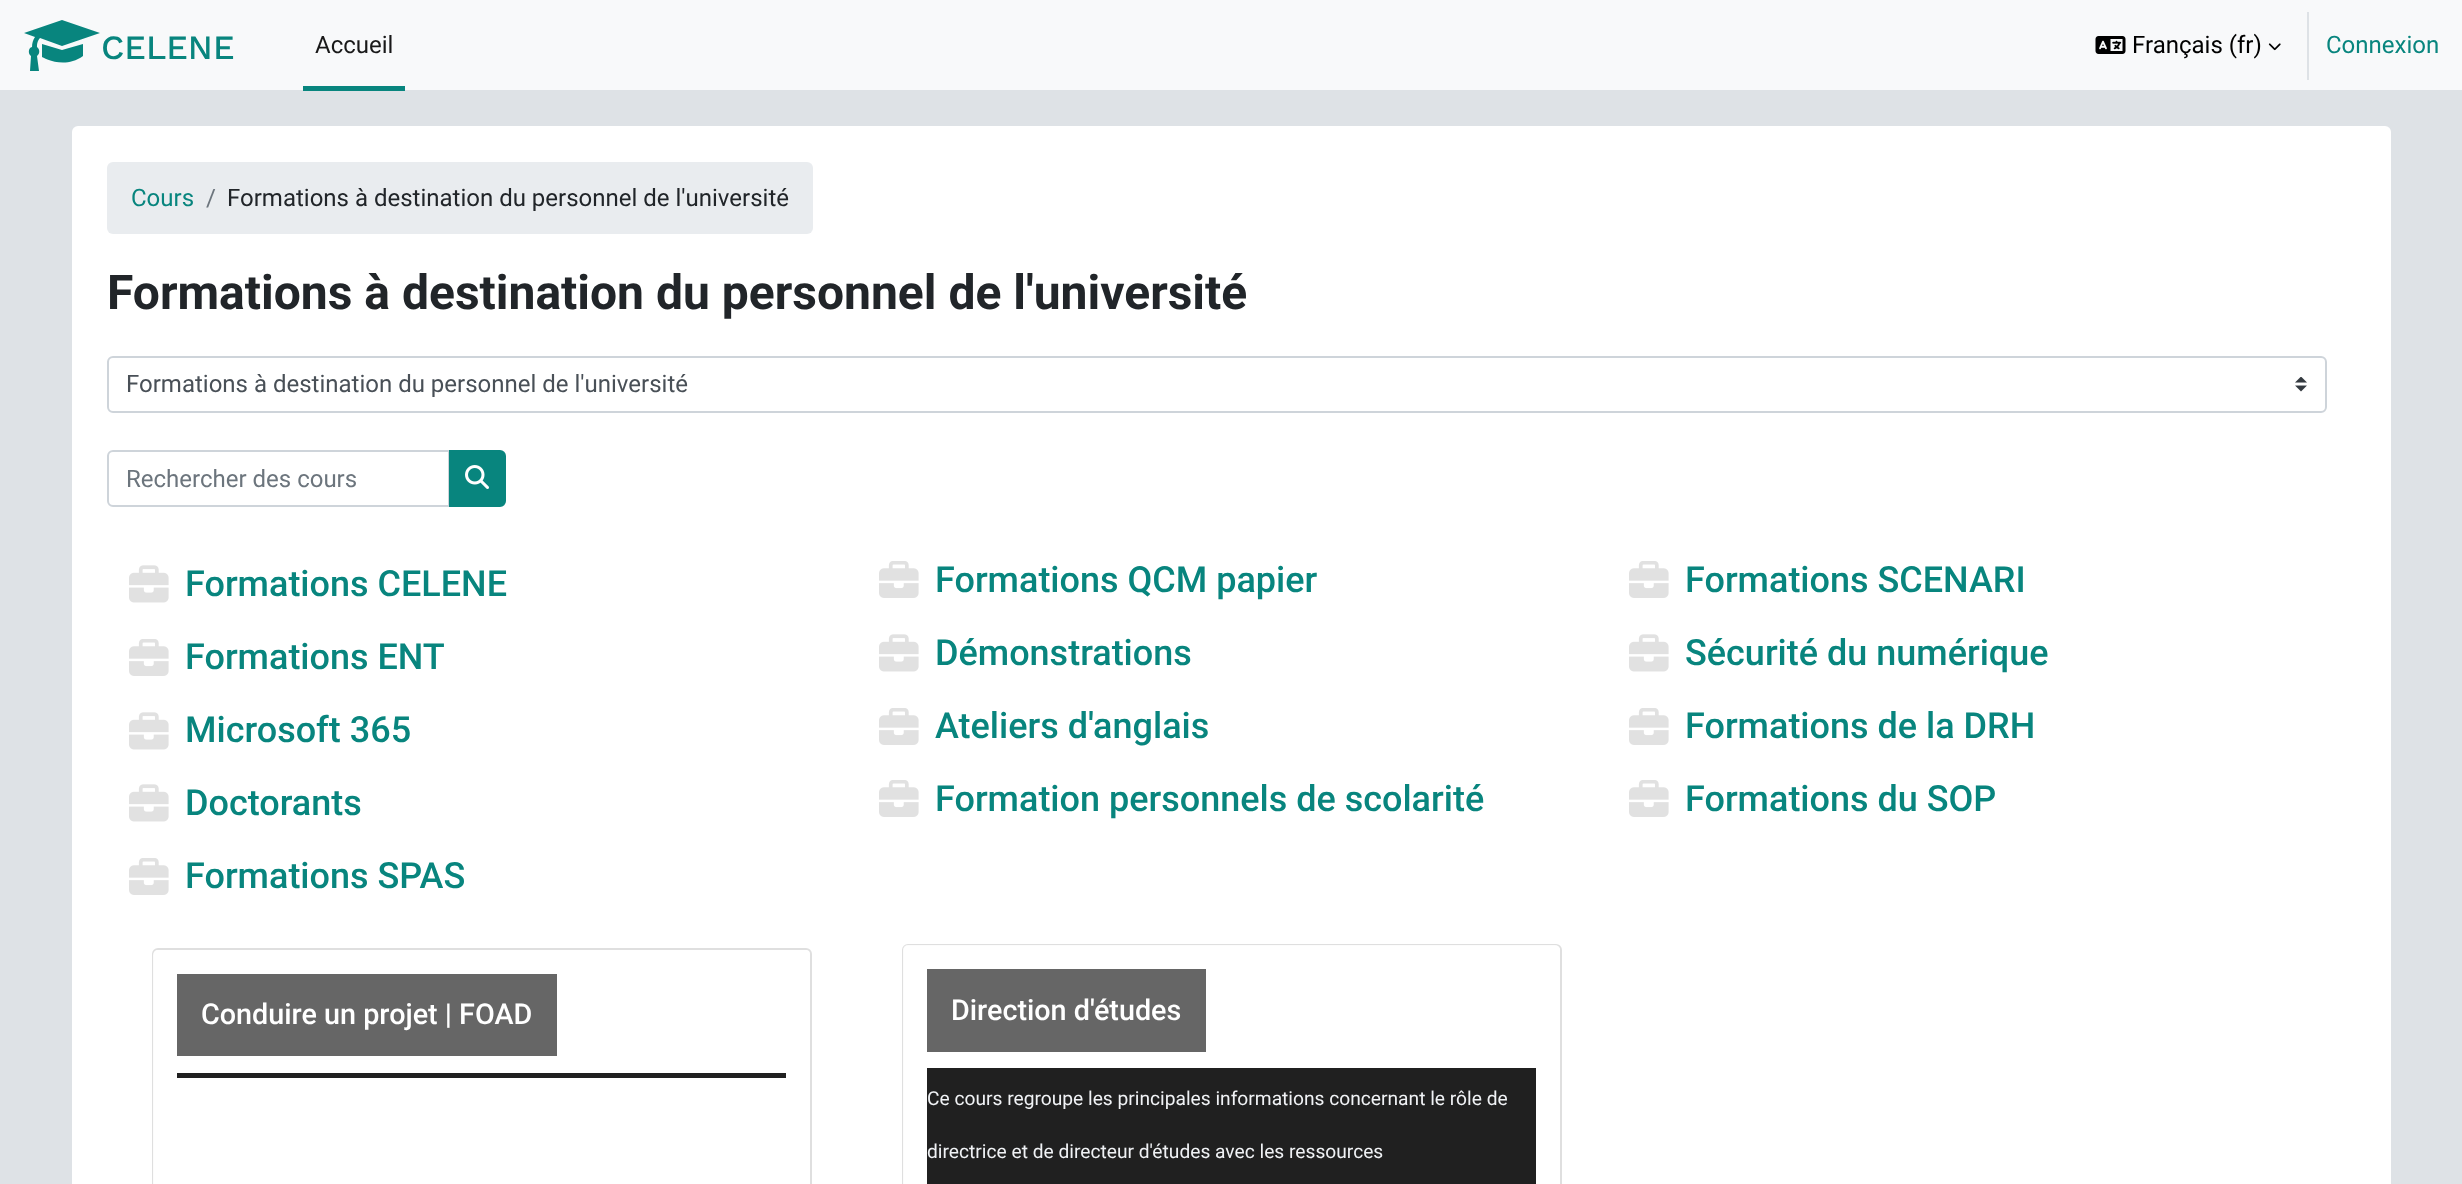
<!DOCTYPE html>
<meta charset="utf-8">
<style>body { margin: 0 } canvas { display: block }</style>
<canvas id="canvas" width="2462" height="1184"></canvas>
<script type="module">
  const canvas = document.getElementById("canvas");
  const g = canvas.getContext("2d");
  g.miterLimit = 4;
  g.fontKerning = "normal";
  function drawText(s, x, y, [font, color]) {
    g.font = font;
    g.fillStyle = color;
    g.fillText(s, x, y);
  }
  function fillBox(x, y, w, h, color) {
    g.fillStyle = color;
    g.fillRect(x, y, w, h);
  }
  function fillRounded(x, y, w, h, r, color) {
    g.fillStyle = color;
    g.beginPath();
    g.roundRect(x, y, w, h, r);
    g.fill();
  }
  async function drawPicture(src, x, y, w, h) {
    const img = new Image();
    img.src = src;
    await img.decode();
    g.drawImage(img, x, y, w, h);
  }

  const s1 = ["500 34px Work Sans", "#08857E"];
  const s2 = ["24px Roboto", "#191919"];
  const s3 = ["24px Roboto", "#000000"];
  const s4 = ["24px Roboto", "#08857E"];
  const s5 = ["24px Roboto", "#6C757D"];
  const s6 = ["24px Roboto", "#212529"];
  const s7 = ["bold 48px Roboto", "#212529"];
  const s8 = ["24px Roboto", "#495057"];
  const s9 = ["500 36px Roboto", "#08857E"];
  const s10 = ["500 28.75px Roboto", "#FFFFFF"];
  const s11 = ["19.2px Roboto", "#F0F2F5"];

  fillBox(0, 0, 2462, 1184, "#DEE2E6");
  fillBox(0, 0, 2462, 90, "#F8F9FA");
  g.fillStyle = "#08857E";
  g.beginPath();
  g.moveTo(62, 46);
  g.lineTo(100, 33);
  g.lineTo(62, 20);
  g.lineTo(24, 33);
  g.lineTo(35, 37);
  g.bezierCurveTo(33, 40, 32, 43, 32, 47);
  g.bezierCurveTo(28, 48, 28, 54, 31, 56);
  g.lineTo(30, 71);
  g.lineTo(39, 71);
  g.lineTo(37, 56);
  g.bezierCurveTo(40, 54, 40, 49, 37, 47);
  g.bezierCurveTo(37, 45, 37, 41, 40, 38);
  g.closePath();
  g.fill();
  g.beginPath();
  g.moveTo(42, 44);
  g.lineTo(42, 57);
  g.bezierCurveTo(42, 57, 64, 70, 83, 56);
  g.lineTo(83, 44);
  g.lineTo(62, 50);
  g.closePath();
  g.fill();
  drawText("CELENE", 101, 59, s1);
  fillBox(303, 86, 102, 5, "#08857E");
  drawText("Accueil", 315, 53, s2);
  await drawPicture("pic1.png", 2095, 36, 31, 18);
  drawText("Français (fr)", 2132, 53, s3);
  await drawPicture("pic2.png", 2268, 43, 13, 8);
  fillBox(2307, 12, 2, 68, "#DEE2E6");
  drawText("Connexion", 2326, 53, s4);
  fillRounded(72, 126, 2319, 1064, 6, "#FFFFFF");
  fillRounded(107, 162, 706, 72, 6, "#E9ECEF");
  drawText("Cours", 131, 206, s4);
  drawText("/", 206, 206, s5);
  drawText("Formations à destination du personnel de l'université", 227, 206, s6);
  drawText("Formations à destination du personnel de l'université", 107, 309, s7);
  await drawPicture("pic3.png", 2295, 377, 12, 15);
  g.beginPath();
  g.roundRect(108, 357, 2218, 55, 5);
  g.strokeStyle = "#CED4DA";
  g.lineWidth = 2;
  g.stroke();
  drawText("Formations à destination du personnel de l'université", 126, 392, s8);
  g.beginPath();
  g.roundRect(108, 451, 341, 55, [5, 0, 0, 5]);
  g.stroke();
  drawText("Rechercher des cours", 126, 487, s5);
  g.fillStyle = "#08857E";
  g.beginPath();
  g.roundRect(450, 451, 55, 55, [0, 5, 5, 0]);
  g.fill();
  g.strokeStyle = "#08857E";
  g.stroke();
  await drawPicture("pic4.png", 465, 465, 24, 24);
  await drawPicture("pic5.png", 129, 565, 40, 38);
  drawText("Formations CELENE", 185, 596, s9);
  await drawPicture("pic6.png", 879, 561, 40, 37);
  drawText("Formations QCM papier", 935, 592, s9);
  await drawPicture("pic6.png", 1629, 561, 40, 37);
  drawText("Formations SCENARI", 1685, 592, s9);
  await drawPicture("pic6.png", 129, 639, 40, 37);
  drawText("Formations ENT", 185, 669, s9);
  await drawPicture("pic5.png", 879, 634, 40, 38);
  drawText("Démonstrations", 935, 665, s9);
  await drawPicture("pic5.png", 1629, 634, 40, 38);
  drawText("Sécurité du numérique", 1685, 665, s9);
  await drawPicture("pic5.png", 129, 712, 40, 38);
  drawText("Microsoft 365", 185, 742, s9);
  await drawPicture("pic6.png", 879, 708, 40, 37);
  drawText("Ateliers d'anglais", 935, 738, s9);
  await drawPicture("pic6.png", 1629, 708, 40, 37);
  drawText("Formations de la DRH", 1685, 738, s9);
  await drawPicture("pic5.png", 129, 784, 40, 38);
  drawText("Doctorants", 185, 815, s9);
  await drawPicture("pic6.png", 879, 780, 40, 37);
  drawText("Formation personnels de scolarité", 935, 811, s9);
  await drawPicture("pic6.png", 1629, 780, 40, 37);
  drawText("Formations du SOP", 1685, 811, s9);
  await drawPicture("pic6.png", 129, 858, 40, 37);
  drawText("Formations SPAS", 185, 888, s9);
  g.beginPath();
  g.roundRect(153, 949, 658, 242, 5);
  g.strokeStyle = "#DFDFDF";
  g.stroke();
  fillRounded(153, 950, 657, 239, 5, "rgba(255, 255, 255, 0.9)");
  fillBox(177, 974, 380, 82, "#666666");
  drawText("Conduire un projet | FOAD", 201, 1024, s10);
  fillBox(177, 1073, 609, 5, "#202020");
  g.beginPath();
  g.roundRect(903, 945, 658, 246, 5);
  g.stroke();
  fillRounded(903, 945, 657, 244, 5, "rgba(255, 255, 255, 0.9)");
  fillBox(927, 969, 279, 83, "#666666");
  drawText("Direction d'études", 951, 1020, s10);
  fillBox(927, 1068, 609, 116, "#202020");
  drawText("Ce cours regroupe les principales informations concernant le rôle de", 927, 1105, s11);
  drawText("directrice et de directeur d'études avec les ressources", 927, 1158, s11);
</script>
